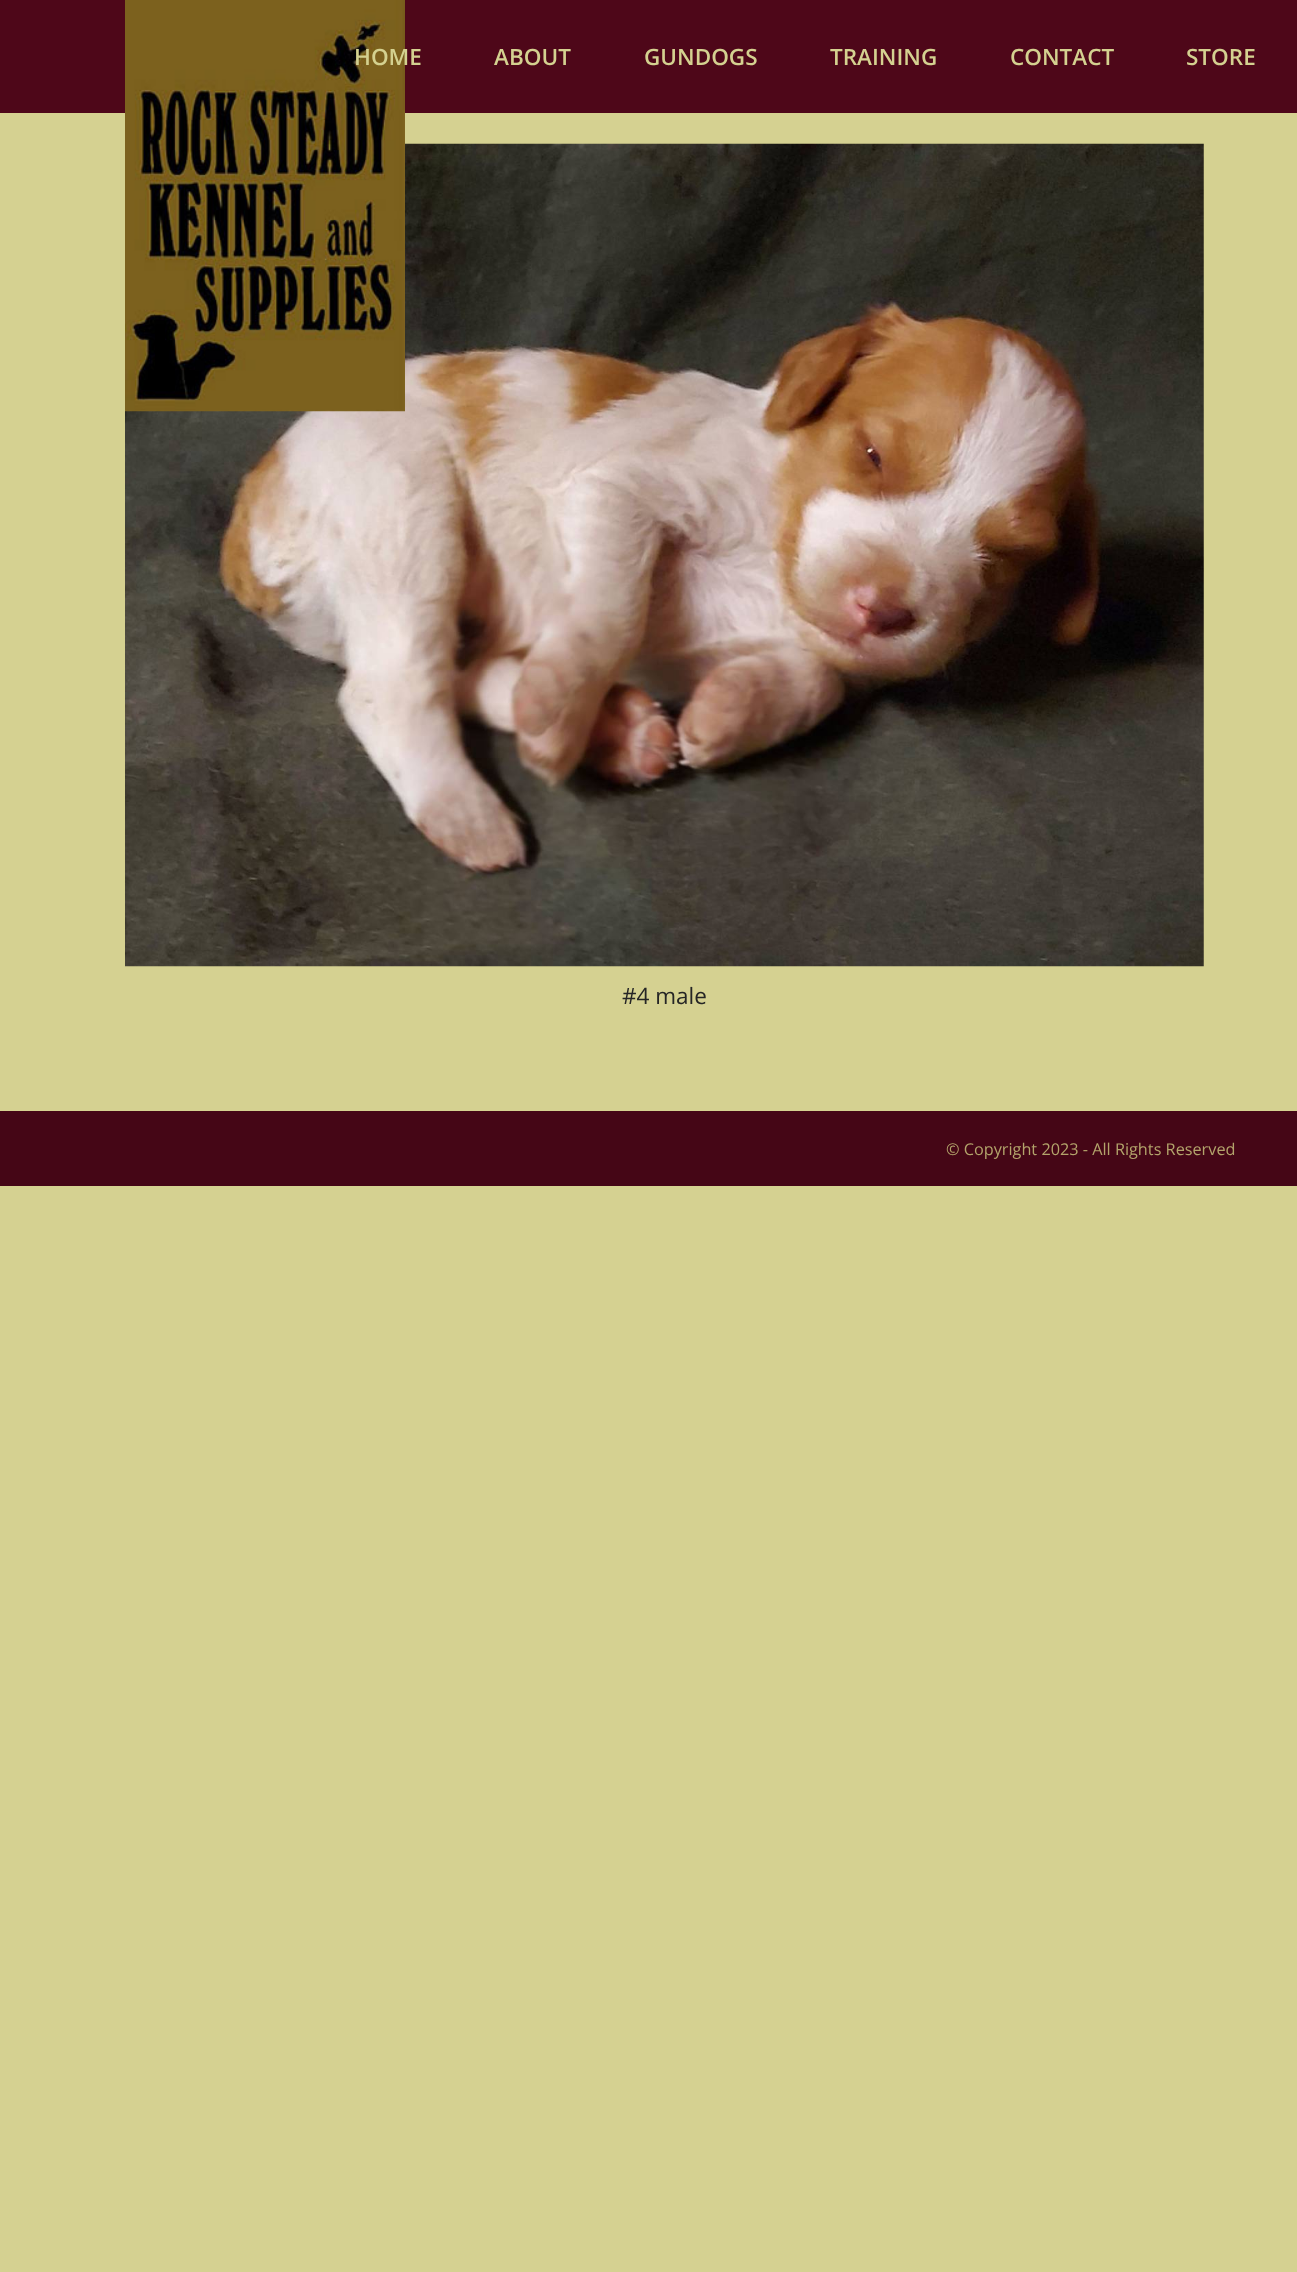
<!DOCTYPE html>
<meta charset="utf-8">
<style>body { margin: 0 } canvas { display: block }</style>
<canvas id="canvas" width="1297" height="2272"></canvas>
<script type="module">
  const canvas = document.getElementById("canvas");
  const g = canvas.getContext("2d");
  g.miterLimit = 4;
  g.fontKerning = "normal";
  function drawText(s, x, y, [font, color]) {
    g.font = font;
    g.fillStyle = color;
    g.fillText(s, x, y);
  }
  function fillBox(x, y, w, h, color) {
    g.fillStyle = color;
    g.fillRect(x, y, w, h);
  }
  async function drawPicture(src, x, y, w, h) {
    const img = new Image();
    img.src = src;
    await img.decode();
    g.drawImage(img, x, y, w, h);
  }

  const s1 = ["600 22.5px Open Sans", "#D4D190"];
  const s2 = ["22.5px Open Sans", "#252525"];
  const s3 = ["16.25px Open Sans", "#B3A46B"];

  fillBox(0, 0, 1297, 2272, "#D5D191");
  fillBox(0, 0, 1297, 113, "#4E0719");
  await drawPicture("pic2.png", 125, 143, 1079, 824);
  await drawPicture("pic1.png", 125, 0, 280, 412);
  drawText("HOME", 354, 65, s1);
  drawText("ABOUT", 494, 65, s1);
  drawText("GUNDOGS", 644, 65, s1);
  drawText("TRAINING", 830, 65, s1);
  drawText("CONTACT", 1010, 65, s1);
  drawText("STORE", 1186, 65, s1);
  drawText("#4 male", 622, 1004, s2);
  fillBox(0, 1111, 1297, 75, "#450616");
  drawText("© Copyright 2023 - All Rights Reserved", 946, 1155, s3);
</script>
